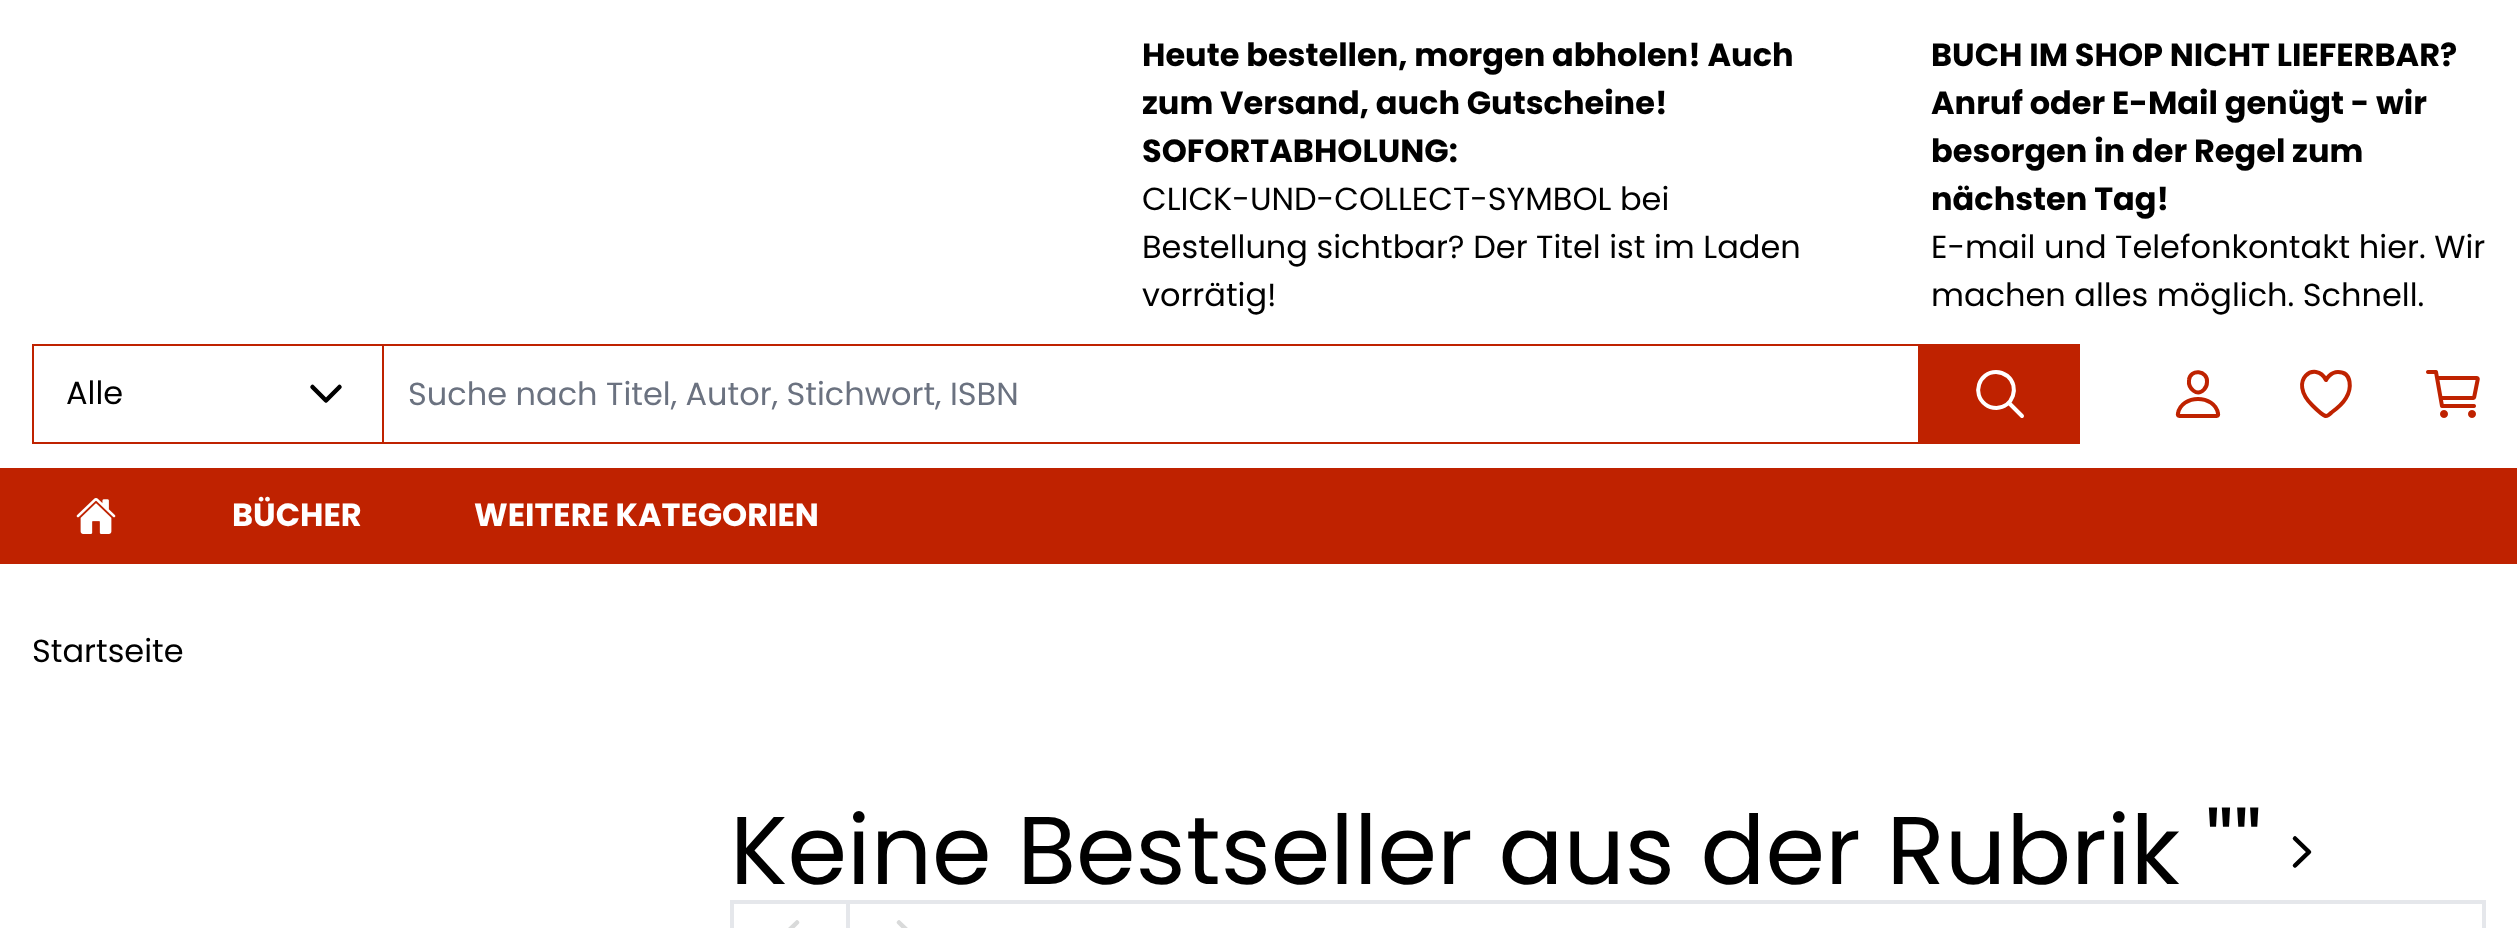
<!DOCTYPE html>
<meta charset="utf-8">
<style>body { margin: 0 } canvas { display: block }</style>
<canvas id="canvas" width="2517" height="928"></canvas>
<script type="module">
  const canvas = document.getElementById("canvas");
  const g = canvas.getContext("2d");
  g.miterLimit = 4;
  g.fontKerning = "normal";
  function drawText(s, x, y, [font, color]) {
    g.font = font;
    g.fillStyle = color;
    g.fillText(s, x, y);
  }
  function fillBox(x, y, w, h, color) {
    g.fillStyle = color;
    g.fillRect(x, y, w, h);
  }
  async function drawPicture(src, x, y, w, h) {
    const img = new Image();
    img.src = src;
    await img.decode();
    g.drawImage(img, x, y, w, h);
  }

  const s1 = ["bold 32px Poppins", "#000000"];
  const s2 = ["32px Poppins", "#000000"];
  const s3 = ["32px Poppins", "#6B7280"];
  const s4 = ["bold 32px Poppins", "#FFFFFF"];
  const s5 = ["96px Poppins", "#000000"];

  fillBox(0, 0, 2517, 928, "#FFFFFF");
  drawText("Heute bestellen, morgen abholen! Auch", 1142, 66, s1);
  drawText("zum Versand, auch Gutscheine!", 1142, 114, s1);
  drawText("SOFORTABHOLUNG:", 1142, 162, s1);
  drawText("CLICK-UND-COLLECT-SYMBOL bei", 1142, 210, s2);
  drawText("Bestellung sichtbar? Der Titel ist im Laden", 1142, 258, s2);
  drawText("vorrätig!", 1142, 306, s2);
  drawText("BUCH IM SHOP NICHT LIEFERBAR?", 1931, 66, s1);
  drawText("Anruf oder E-Mail genügt - wir", 1931, 114, s1);
  drawText("besorgen in der Regel zum", 1931, 162, s1);
  drawText("nächsten Tag!", 1931, 210, s1);
  drawText("E-mail und Telefonkontakt hier. Wir", 1931, 258, s2);
  drawText("machen alles möglich. Schnell.", 1931, 306, s2);
  g.strokeStyle = "#BF2200";
  g.lineWidth = 2;
  g.strokeRect(383, 345, 1536, 98);
  g.strokeRect(33, 345, 350, 98);
  drawText("Alle", 66, 404, s2);
  g.beginPath();
  g.moveTo(312.5, 387);
  g.lineTo(326, 400.5);
  g.lineTo(339.5, 387);
  g.strokeStyle = "#000000";
  g.lineWidth = 4.5;
  g.lineCap = "round";
  g.lineJoin = "round";
  g.stroke();
  drawText("Suche nach Titel, Autor, Stichwort, ISBN", 408, 405, s3);
  fillBox(1920, 344, 160, 100, "#BF2200");
  g.beginPath();
  g.moveTo(1996, 372);
  g.bezierCurveTo(1979, 372, 1971.5, 394, 1985.5, 404.5);
  g.bezierCurveTo(1988.5, 407, 1992.5, 408, 1996.5, 408);
  g.bezierCurveTo(2013, 407.5, 2020, 386.5, 2007.5, 376);
  g.bezierCurveTo(2004, 373.5, 2000, 372, 1996, 372);
  g.closePath();
  g.strokeStyle = "#FFFFFF";
  g.lineWidth = 4;
  g.lineCap = "butt";
  g.lineJoin = "miter";
  g.stroke();
  g.beginPath();
  g.moveTo(2009.5, 403.5);
  g.lineTo(2022, 416);
  g.lineCap = "round";
  g.stroke();
  g.beginPath();
  g.moveTo(2207, 382);
  g.bezierCurveTo(2207, 385, 2206, 387.5, 2204, 389.5);
  g.bezierCurveTo(2197, 397, 2188, 388.5, 2189, 380);
  g.bezierCurveTo(2190, 368.5, 2208, 370, 2207, 382);
  g.closePath();
  g.strokeStyle = "#BF2200";
  g.lineJoin = "round";
  g.stroke();
  g.beginPath();
  g.moveTo(2198, 399);
  g.bezierCurveTo(2189, 399, 2179.5, 404, 2178, 413.5);
  g.bezierCurveTo(2177.5, 415, 2178, 416, 2179.5, 416);
  g.lineTo(2216.5, 416);
  g.bezierCurveTo(2218, 416, 2218.5, 415, 2218, 413.5);
  g.bezierCurveTo(2216.5, 404, 2207, 399, 2198, 399);
  g.closePath();
  g.lineCap = "butt";
  g.lineJoin = "miter";
  g.stroke();
  g.beginPath();
  g.moveTo(2338, 372);
  g.bezierCurveTo(2330, 372, 2326, 380, 2326, 380);
  g.bezierCurveTo(2316, 360, 2286.5, 380, 2312.5, 405.5);
  g.bezierCurveTo(2315, 408, 2322.5, 415, 2325.5, 416);
  g.bezierCurveTo(2327.5, 416.5, 2331, 413, 2331.5, 412.5);
  g.bezierCurveTo(2337, 408.5, 2342.5, 404, 2346, 398);
  g.bezierCurveTo(2351.5, 389, 2352.5, 372, 2338, 372);
  g.closePath();
  g.lineCap = "round";
  g.lineJoin = "round";
  g.stroke();
  await drawPicture("pic1.png", 2426, 370, 54, 48);
  fillBox(0, 468, 2517, 96, "#BF2200");
  await drawPicture("pic2.png", 76, 498, 40, 36);
  drawText("BÜCHER", 232, 526, s4);
  drawText("WEITERE KATEGORIEN", 474, 526, s4);
  drawText("Startseite", 32, 662, s2);
  drawText("Keine Bestseller aus der Rubrik \"\"", 730, 884, s5);
  g.beginPath();
  g.moveTo(2295, 838.5);
  g.lineTo(2309, 852);
  g.lineTo(2295, 865.5);
  g.strokeStyle = "#000000";
  g.lineWidth = 4.5;
  g.stroke();
  g.strokeStyle = "#E5E7EB";
  g.lineWidth = 4;
  g.lineJoin = "miter";
  g.strokeRect(732, 902, 1752, 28);
  fillBox(846, 904, 4, 24, "#E5E7EB");
  g.beginPath();
  g.moveTo(797, 922.5);
  g.lineTo(783, 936);
  g.lineTo(797, 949.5);
  g.strokeStyle = "#D9DADA";
  g.lineWidth = 4.5;
  g.lineJoin = "round";
  g.stroke();
  g.beginPath();
  g.moveTo(899, 922.5);
  g.lineTo(913, 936);
  g.lineTo(899, 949.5);
  g.stroke();
</script>
